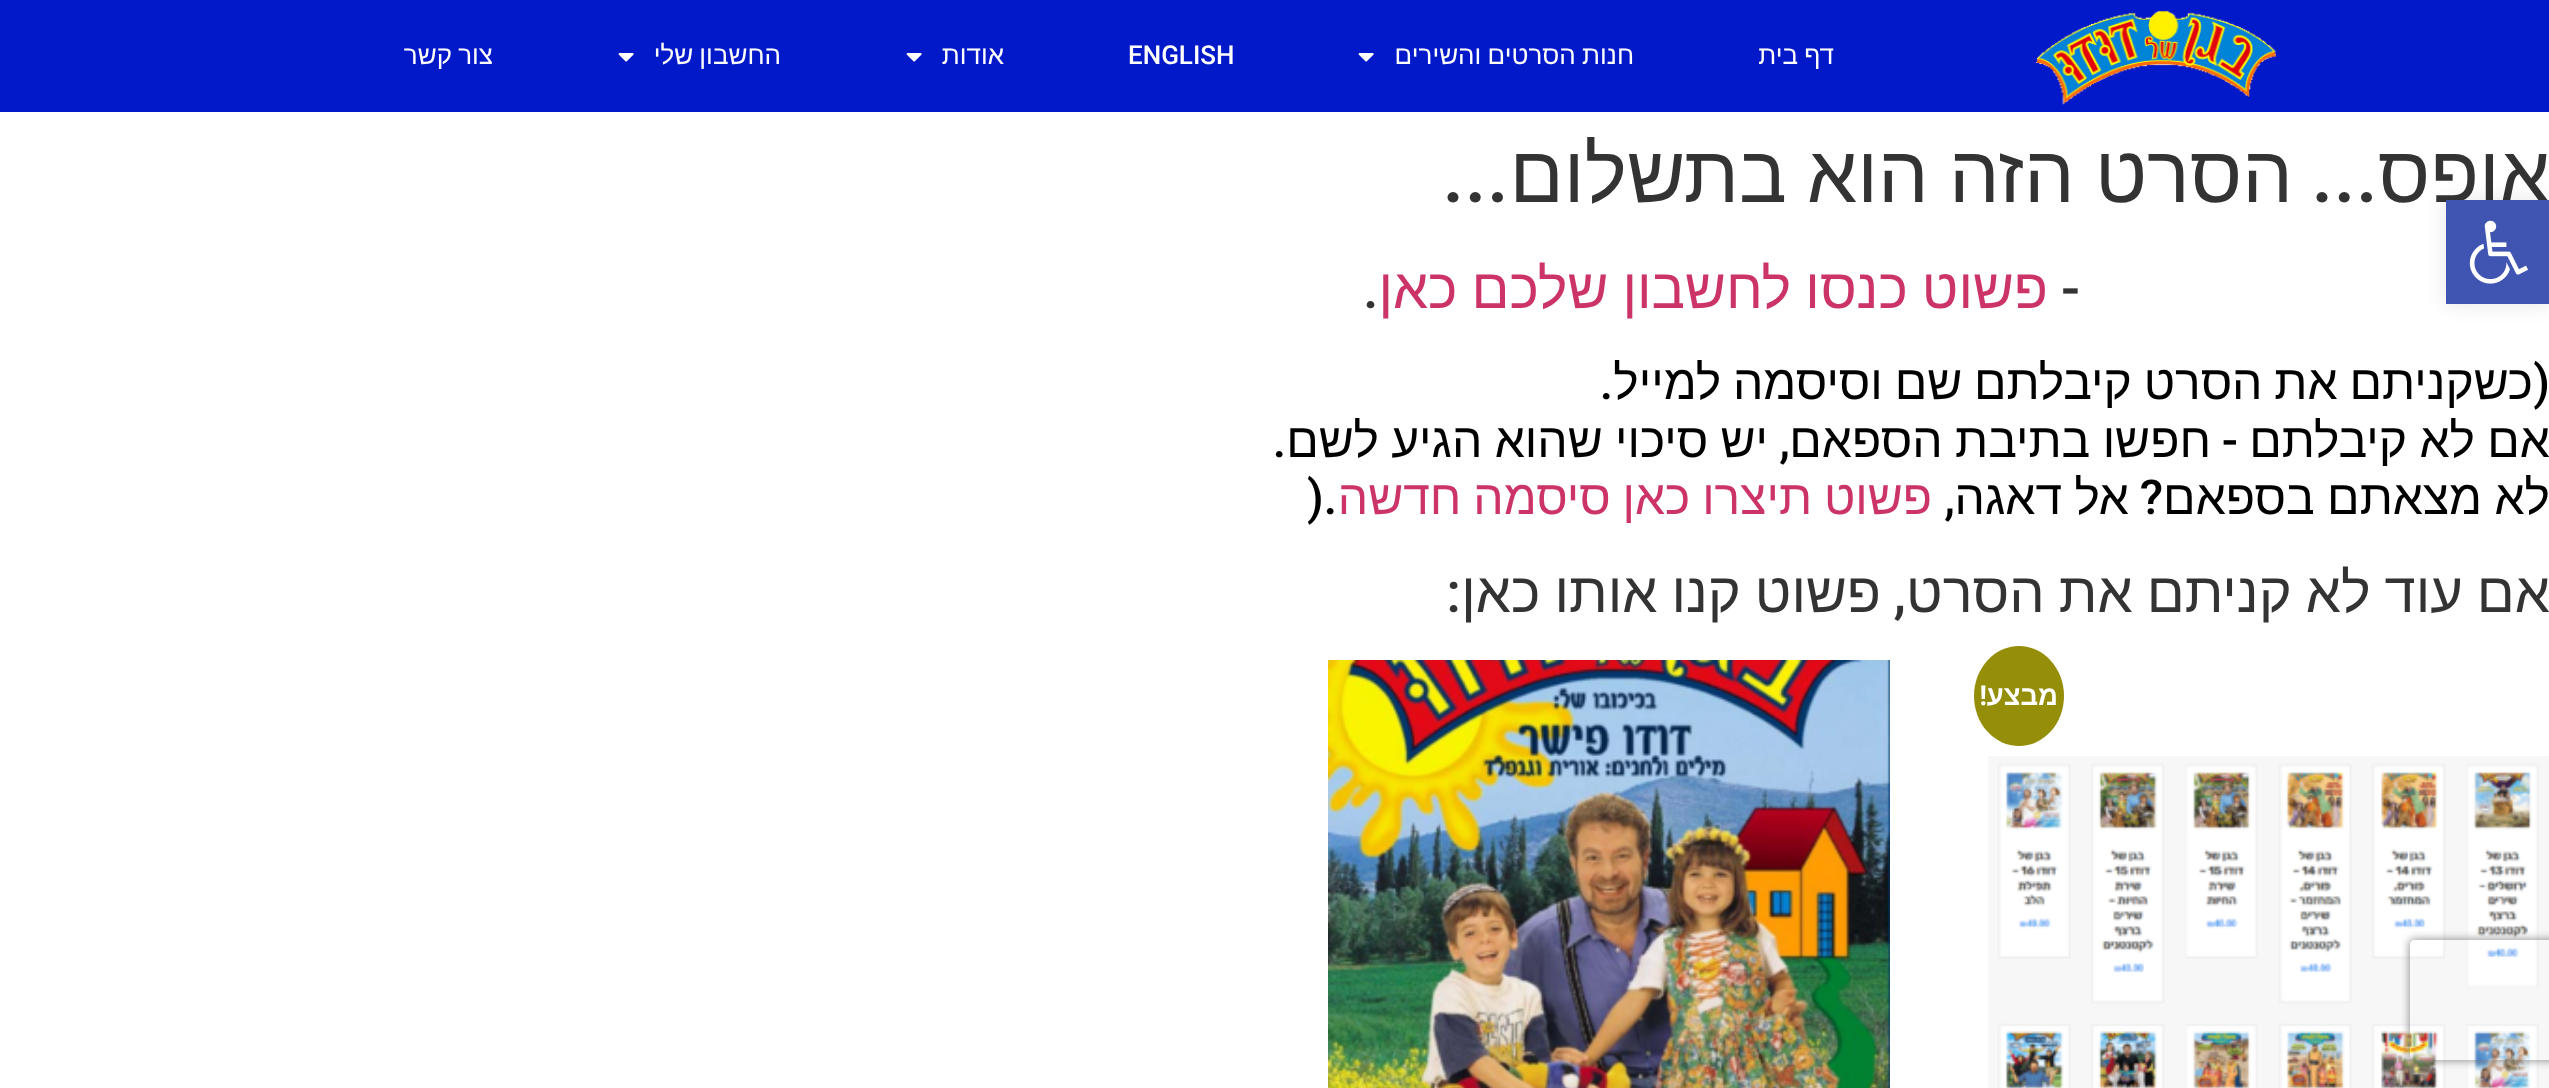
<!DOCTYPE html>
<meta charset="utf-8">
<style>body { margin: 0 } canvas { display: block }</style>
<canvas id="canvas" width="2549" height="1088"></canvas>
<script type="module">
  const canvas = document.getElementById("canvas");
  const g = canvas.getContext("2d");
  g.miterLimit = 4;
  g.fontKerning = "normal";
  function drawText(s, x, y, [font, color]) {
    g.font = font;
    g.fillStyle = color;
    g.fillText(s, x, y);
  }
  function fillBox(x, y, w, h, color) {
    g.fillStyle = color;
    g.fillRect(x, y, w, h);
  }
  async function drawPicture(src, x, y, w, h) {
    const img = new Image();
    img.src = src;
    await img.decode();
    g.drawImage(img, x, y, w, h);
  }

  const s1 = ["26px Liberation Sans", "#FFFFFF"];
  const s2 = ["500 26px Roboto", "#FFFFFF"];
  const s3 = ["80px Liberation Sans", "#333333"];
  const s4 = ["500 80px Roboto", "#333333"];
  const s5 = ["500 56px Roboto", "#333333"];
  const s6 = ["56px Liberation Sans", "#CC3366"];
  const s7 = ["48px Liberation Sans", "#000000"];
  const s8 = ["500 48px Roboto", "#000000"];
  const s9 = ["48px Liberation Sans", "#CC3366"];
  const s10 = ["56px Liberation Sans", "#333333"];
  const s11 = ["bold 27.5px Liberation Sans", "#FFFFFF"];
  const s12 = ["bold 27.5px Roboto", "#FFFFFF"];

  fillBox(0, 0, 2549, 1088, "#FFFFFF");
  fillBox(0, 0, 2549, 112, "#0219C9");
  await drawPicture("pic1.png", 2035, 10, 241, 95);
  g.wordSpacing = "-1px";
  g.direction = "rtl";
  drawText("דף בית", 1834, 64, s1);
  drawText("חנות הסרטים והשירים", 1634, 64, s1);
  await drawPicture("pic2.png", 1358, 53, 16, 9);
  g.wordSpacing = "0px";
  g.direction = "ltr";
  drawText("ENGLISH", 1128, 64, s2);
  g.direction = "rtl";
  drawText("אודות", 1004, 64, s1);
  await drawPicture("pic2.png", 906, 53, 16, 9);
  g.wordSpacing = "-1px";
  drawText("החשבון שלי", 781, 64, s1);
  await drawPicture("pic2.png", 618, 53, 16, 9);
  drawText("צור קשר", 493, 64, s1);
  g.wordSpacing = "0px";
  drawText("אופס", 2550, 202, s3);
  drawText("...", 2378, 202, s4);
  g.wordSpacing = "-2px";
  drawText("הסרט הזה הוא בתשלום", 2293, 202, s3);
  g.wordSpacing = "0px";
  drawText("...", 1509, 202, s4);
  drawText("-", 2080, 308, s5);
  g.wordSpacing = "-1.5px";
  drawText("פשוט כנסו לחשבון שלכם כאן", 2048, 308, s6);
  g.wordSpacing = "0px";
  g.direction = "ltr";
  drawText(".", 1363, 308, s5);
  g.wordSpacing = "-1.5px";
  g.direction = "rtl";
  drawText("כשקניתם את הסרט קיבלתם שם וסיסמה למייל", 2533, 399, s7);
  g.wordSpacing = "0px";
  drawText("(", 2550, 399, s8);
  drawText(".", 1613, 399, s8);
  g.wordSpacing = "-1px";
  drawText("אם לא קיבלתם", 2550, 457, s7);
  g.wordSpacing = "0px";
  drawText("-", 2238, 457, s8);
  g.wordSpacing = "-1px";
  drawText("חפשו בתיבת הספאם", 2211, 457, s7);
  drawText("יש סיכוי שהוא הגיע לשם", 1768, 457, s7);
  g.wordSpacing = "0px";
  drawText(",", 1790, 457, s8);
  drawText(".", 1286, 457, s8);
  g.wordSpacing = "-1px";
  drawText("לא מצאתם בספאם", 2550, 514, s7);
  g.wordSpacing = "0px";
  drawText("?", 2163, 514, s8);
  g.wordSpacing = "-1px";
  drawText("אל דאגה", 2129, 514, s7);
  g.wordSpacing = "0px";
  drawText(",", 1955, 514, s8);
  g.wordSpacing = "-1.5px";
  drawText("פשוט תיצרו כאן סיסמה חדשה", 1932, 514, s9);
  g.wordSpacing = "0px";
  g.direction = "ltr";
  drawText(").", 1307, 514, s8);
  g.wordSpacing = "-1.5px";
  g.direction = "rtl";
  drawText("אם עוד לא קניתם את הסרט", 2550, 612, s10);
  g.wordSpacing = "0px";
  drawText(",", 1906, 612, s5);
  g.wordSpacing = "-1.5px";
  drawText("פשוט קנו אותו כאן", 1881, 612, s10);
  g.wordSpacing = "0px";
  drawText(":", 1461, 612, s5);
  g.fillStyle = "#958E09";
  g.beginPath();
  g.ellipse(2019, 696, 45, 50, 0, 0, Math.PI * 2);
  g.fill();
  drawText("מבצע", 2058, 705, s11);
  drawText("!", 1987, 705, s12);
  await drawPicture("pic3.png", 1988, 756, 561, 332);
  await drawPicture("pic4.png", 1328, 660, 562, 428);
  g.fillStyle = "rgba(0, 0, 0, 0.1)";
  g.filter = "blur(10px)";
  g.beginPath();
  g.rect(2446, 200, 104, 104);
  g.fill();
  g.filter = "none";
  fillBox(2446, 200, 103, 104, "#4054B2");
  await drawPicture("pic5.png", 2469, 220, 59, 64);
  g.save();
  g.beginPath();
  g.moveTo(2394, 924);
  g.lineTo(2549, 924);
  g.lineTo(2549, 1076);
  g.lineTo(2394, 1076);
  g.closePath();
  g.moveTo(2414, 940);
  g.lineTo(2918, 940);
  g.bezierCurveTo(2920, 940, 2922, 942, 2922, 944);
  g.lineTo(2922, 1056);
  g.bezierCurveTo(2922, 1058, 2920, 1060, 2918, 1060);
  g.lineTo(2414, 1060);
  g.bezierCurveTo(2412, 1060, 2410, 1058, 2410, 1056);
  g.lineTo(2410, 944);
  g.bezierCurveTo(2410, 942, 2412, 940, 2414, 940);
  g.closePath();
  g.clip("evenodd");
  g.fillStyle = "#808080";
  g.filter = "blur(5px)";
  g.beginPath();
  g.roundRect(2410, 940, 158, 120, 4);
  g.fill();
  g.filter = "none";
  g.restore();
</script>
